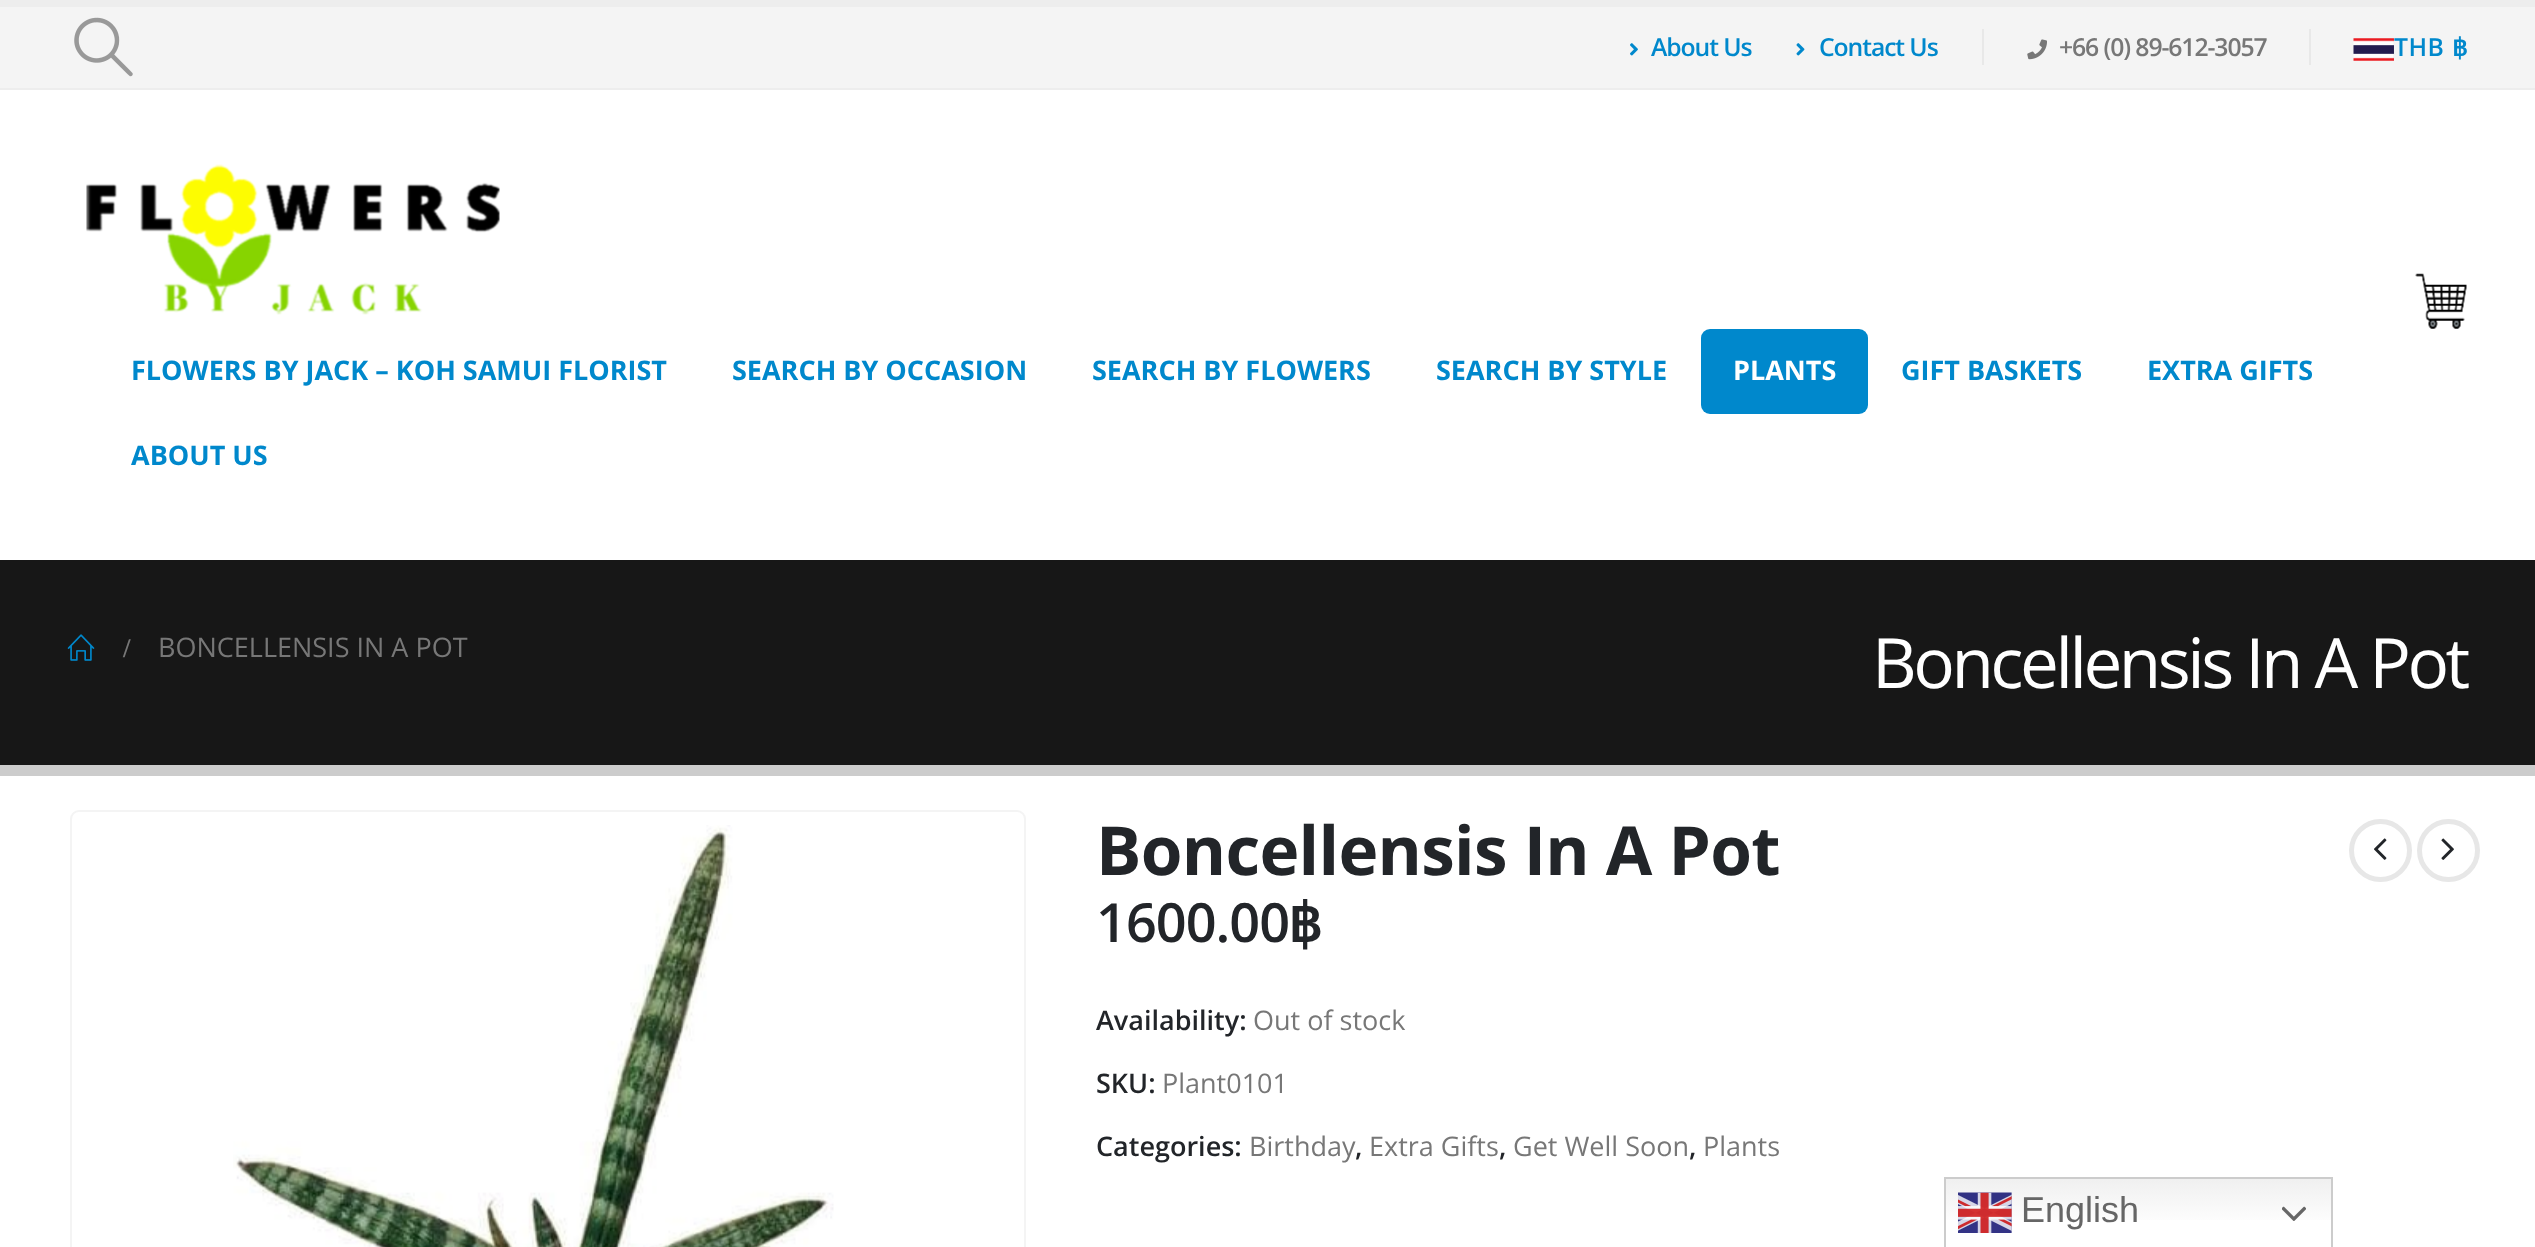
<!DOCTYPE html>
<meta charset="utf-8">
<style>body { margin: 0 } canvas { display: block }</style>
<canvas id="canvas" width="2535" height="1247"></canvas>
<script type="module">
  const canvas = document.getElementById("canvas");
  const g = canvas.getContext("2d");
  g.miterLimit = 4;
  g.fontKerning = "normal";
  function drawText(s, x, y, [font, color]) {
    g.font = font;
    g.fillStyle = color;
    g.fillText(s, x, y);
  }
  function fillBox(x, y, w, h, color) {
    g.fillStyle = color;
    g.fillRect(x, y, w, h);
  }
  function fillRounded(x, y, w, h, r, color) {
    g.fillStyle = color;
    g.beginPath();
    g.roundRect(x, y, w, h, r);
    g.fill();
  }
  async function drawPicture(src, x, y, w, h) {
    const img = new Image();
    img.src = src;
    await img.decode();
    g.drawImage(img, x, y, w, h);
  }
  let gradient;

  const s1 = ["600 24.75px Open Sans", "#0088CC"];
  const s2 = ["600 24.75px Open Sans", "#777777"];
  const s3 = ["bold 24.75px DejaVu Sans", "#0088CC"];
  const s4 = ["bold 27px Open Sans", "#0088CC"];
  const s5 = ["bold 27px Open Sans", "#FFFFFF"];
  const s6 = ["bold 27px Liberation Serif", "#777777"];
  const s7 = ["27px Open Sans", "#777777"];
  const s8 = ["69.25px Open Sans", "#FFFFFF"];
  const s9 = ["bold 67.5px Open Sans", "#222529"];
  const s10 = ["600 54px Open Sans", "#222529"];
  const s11 = ["bold 54px DejaVu Sans", "#222529"];
  const s12 = ["600 27px Open Sans", "#222529"];
  const s13 = ["36px Liberation Sans", "#666666"];

  fillBox(0, 0, 2535, 1247, "#FFFFFF");
  fillBox(0, 0, 2535, 7, "#EDEDED");
  fillBox(0, 7, 2535, 81, "#F4F4F4");
  fillBox(0, 88, 2535, 2, "#EDEDED");
  await drawPicture("pic1.png", 74, 17, 59, 60);
  await drawPicture("pic2.png", 1630, 43, 8, 13);
  g.letterSpacing = "-1.1px";
  drawText("About Us", 1651, 56, s1);
  await drawPicture("pic3.png", 1796, 43, 9, 13);
  drawText("Contact Us", 1819, 56, s1);
  fillBox(1982, 29, 2, 36, "#E8E8E8");
  await drawPicture("pic4.png", 2027, 39, 20, 21);
  drawText("+66 (0) 89-612-3057", 2059, 56, s2);
  fillBox(2309, 29, 2, 36, "#E8E8E8");
  await drawPicture("pic5.png", 2353, 38, 41, 23);
  g.letterSpacing = "0.5px";
  drawText("THB", 2394, 56, s1);
  drawText("฿", 2452, 56, s3);
  await drawPicture("pic6.png", 2415, 273, 52, 56);
  await drawPicture("pic7.png", 86, 164, 414, 151);
  g.letterSpacing = "0px";
  drawText("FLOWERS BY JACK – KOH SAMUI FLORIST", 131, 380, s4);
  drawText("SEARCH BY OCCASION", 732, 380, s4);
  drawText("SEARCH BY FLOWERS", 1092, 380, s4);
  drawText("SEARCH BY STYLE", 1436, 380, s4);
  fillRounded(1701, 329, 167, 85, 9, "#0088CC");
  drawText("PLANTS", 1733, 380, s5);
  drawText("GIFT BASKETS", 1901, 380, s4);
  drawText("EXTRA GIFTS", 2147, 380, s4);
  drawText("ABOUT US", 131, 465, s4);
  fillBox(0, 560, 2535, 205, "#171717");
  fillBox(0, 765, 2535, 11, "#CCCCCC");
  await drawPicture("pic8.png", 67, 634, 28, 27);
  drawText("/", 123, 657, s6);
  drawText("BONCELLENSIS IN A POT", 158, 657, s7);
  g.letterSpacing = "-3.5px";
  drawText("Boncellensis In A Pot", 1872, 688, s8);
  g.beginPath();
  g.roundRect(71, 811, 954, 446, 8);
  g.strokeStyle = "#F4F4F4";
  g.lineWidth = 2;
  g.stroke();
  await drawPicture("pic9.png", 233, 825, 601, 422);
  g.letterSpacing = "-0.7px";
  drawText("Boncellensis In A Pot", 1096, 875, s9);
  g.beginPath();
  g.arc(2380.5, 850.5, 29, 0, Math.PI * 2);
  g.strokeStyle = "#E7E7E7";
  g.lineWidth = 5;
  g.stroke();
  await drawPicture("pic10.png", 2374, 838, 13, 22);
  g.beginPath();
  g.arc(2448.5, 850.5, 29, 0, Math.PI * 2);
  g.stroke();
  await drawPicture("pic11.png", 2441, 838, 13, 22);
  g.letterSpacing = "-1px";
  drawText("1600.00", 1096, 942, s10);
  drawText("฿", 1288, 942, s11);
  g.letterSpacing = "0px";
  drawText("Availability:", 1096, 1030, s12);
  drawText("Out of stock", 1253, 1030, s7);
  drawText("SKU:", 1096, 1093, s12);
  drawText("Plant0101", 1162, 1093, s7);
  drawText("Categories:", 1096, 1156, s12);
  drawText("Birthday", 1249, 1156, s7);
  drawText(",", 1355, 1156, s12);
  drawText("Extra Gifts", 1369, 1156, s7);
  drawText(",", 1499, 1156, s12);
  drawText("Get Well Soon", 1513, 1156, s7);
  drawText(",", 1689, 1156, s12);
  drawText("Plants", 1703, 1156, s7);
  gradient = g.createLinearGradient(2139, 1177, 2139, 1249);
  gradient.addColorStop(0, "#EFEFEF");
  gradient.addColorStop(0.7, "#FFFFFF");
  g.fillStyle = gradient;
  g.fillRect(1946, 1179, 385, 41);
  g.strokeStyle = "#CCCCCC";
  g.lineWidth = 2;
  g.strokeRect(1945, 1178, 387, 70);
  await drawPicture("pic12.png", 1958, 1192, 54, 41);
  drawText("English", 2021, 1222, s13);
  await drawPicture("pic13.png", 2282, 1206, 24, 15);
</script>
